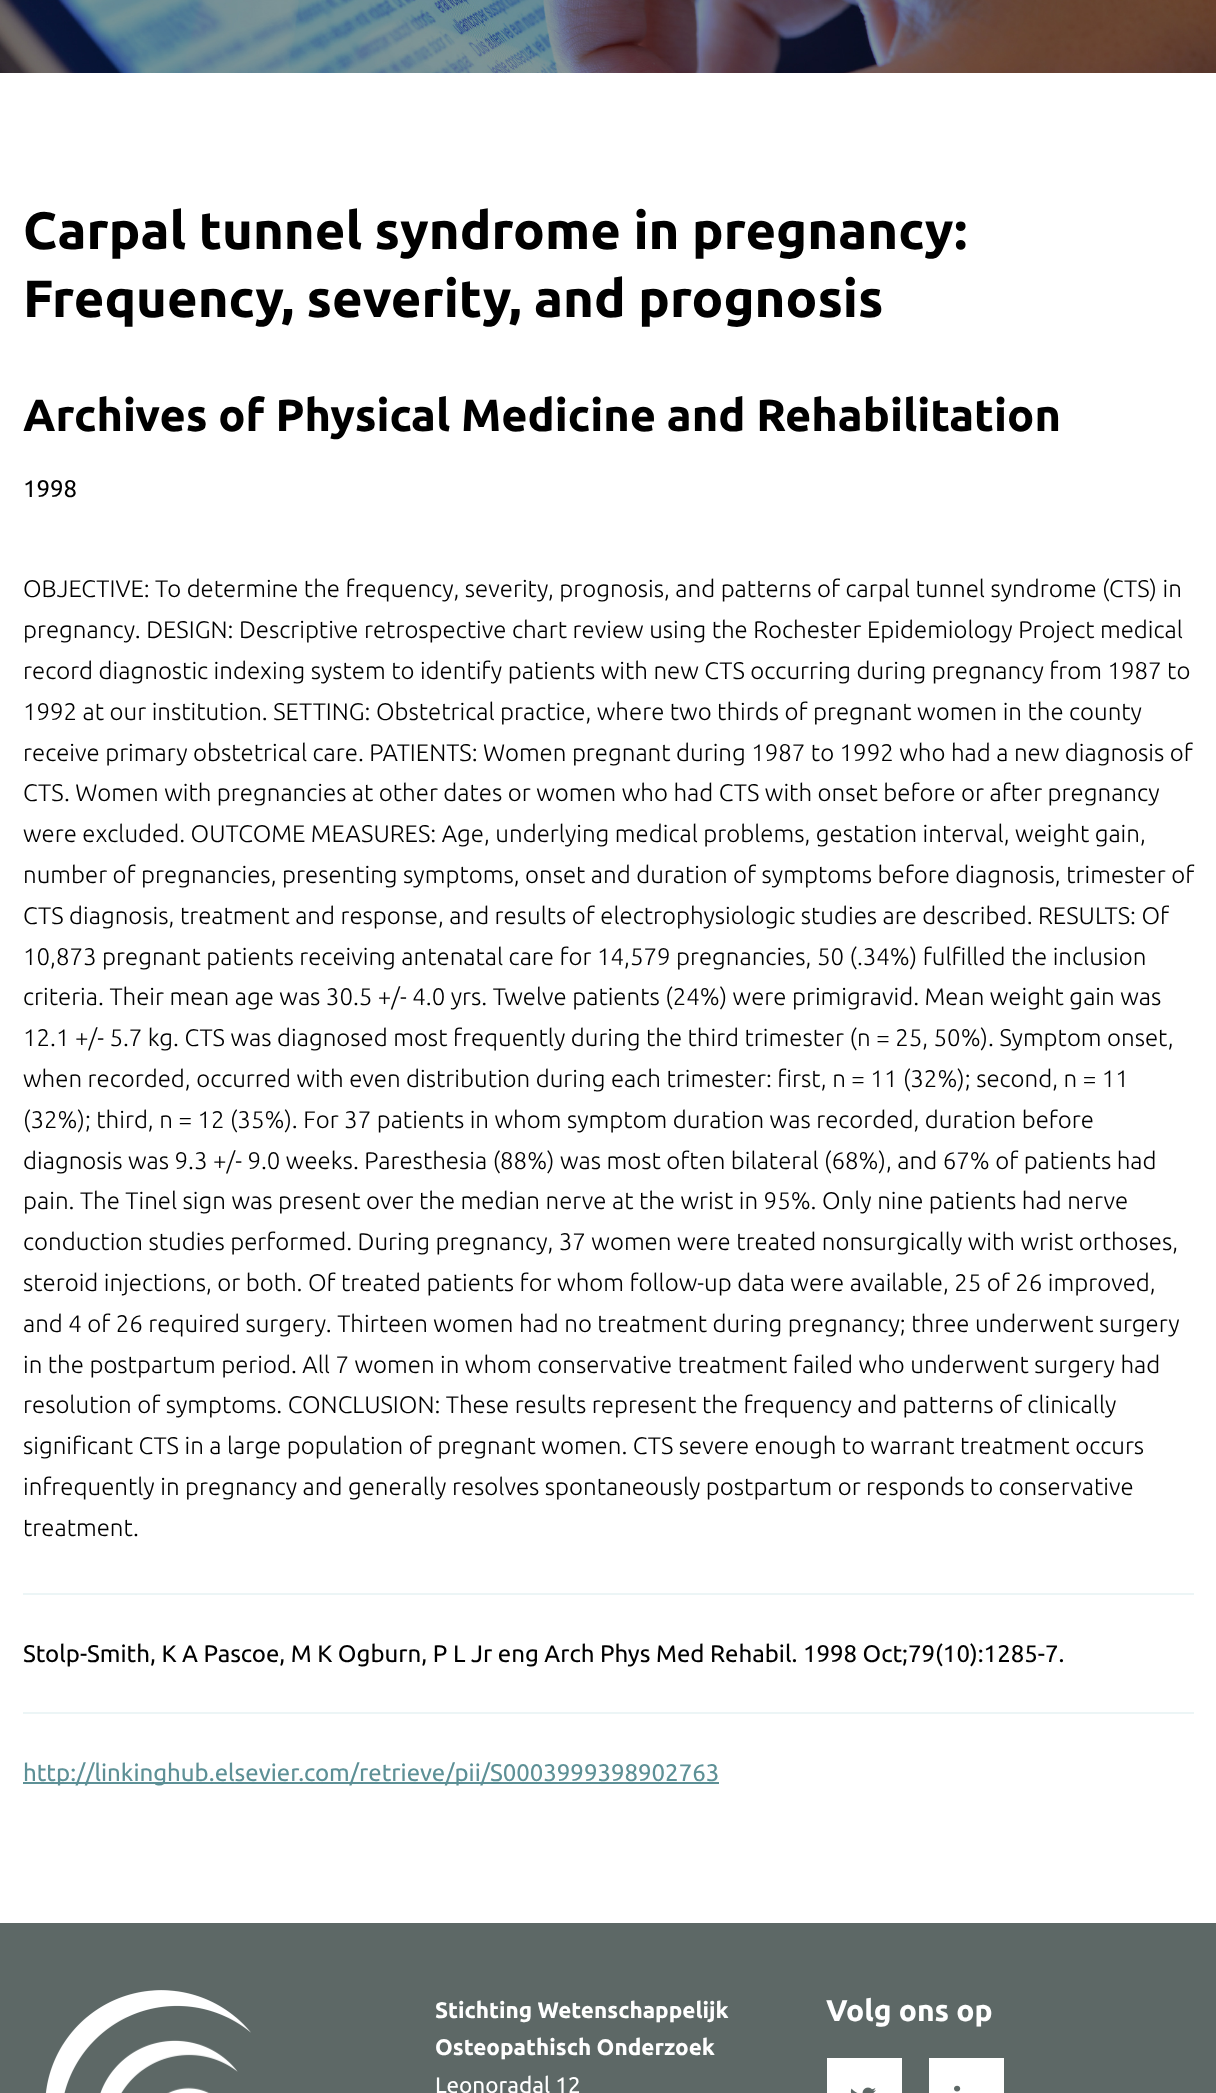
<!DOCTYPE html>
<meta charset="utf-8">
<style>body { margin: 0 } canvas { display: block }</style>
<canvas id="canvas" width="1216" height="2093"></canvas>
<script type="module">
  const canvas = document.getElementById("canvas");
  const g = canvas.getContext("2d");
  g.miterLimit = 4;
  g.fontKerning = "normal";
  function drawText(s, x, y, [font, color]) {
    g.font = font;
    g.fillStyle = color;
    g.fillText(s, x, y);
  }
  function fillBox(x, y, w, h, color) {
    g.fillStyle = color;
    g.fillRect(x, y, w, h);
  }
  async function drawPicture(src, x, y, w, h) {
    const img = new Image();
    img.src = src;
    await img.decode();
    g.drawImage(img, x, y, w, h);
  }

  const s1 = ["bold 52.5px Ubuntu", "#000000"];
  const s2 = ["bold 45px Ubuntu", "#000000"];
  const s3 = ["24px Ubuntu", "#000000"];
  const s4 = ["300 24px Ubuntu", "#000000"];
  const s5 = ["24px Ubuntu", "#5D9096"];
  const s6 = ["bold 22.5px Ubuntu", "#FFFFFF"];
  const s7 = ["22.5px Ubuntu", "#FFFFFF"];
  const s8 = ["bold 30px Ubuntu", "#FFFFFF"];

  fillBox(0, 0, 1216, 2093, "#FFFFFF");
  await drawPicture("pic1.png", 0, 0, 1216, 73);
  drawText("Carpal tunnel syndrome in pregnancy:", 23, 249, s1);
  drawText("Frequency, severity, and prognosis", 23, 317, s1);
  drawText("Archives of Physical Medicine and Rehabilitation", 23, 431, s2);
  drawText("1998", 23, 497, s3);
  drawText("OBJECTIVE: To determine the frequency, severity, prognosis, and patterns of carpal tunnel syndrome (CTS) in", 23, 597, s4);
  drawText("pregnancy. DESIGN: Descriptive retrospective chart review using the Rochester Epidemiology Project medical", 23, 638, s4);
  drawText("record diagnostic indexing system to identify patients with new CTS occurring during pregnancy from 1987 to", 23, 679, s4);
  drawText("1992 at our institution. SETTING: Obstetrical practice, where two thirds of pregnant women in the county", 23, 720, s4);
  drawText("receive primary obstetrical care. PATIENTS: Women pregnant during 1987 to 1992 who had a new diagnosis of", 23, 761, s4);
  drawText("CTS. Women with pregnancies at other dates or women who had CTS with onset before or after pregnancy", 23, 801, s4);
  drawText("were excluded. OUTCOME MEASURES: Age, underlying medical problems, gestation interval, weight gain,", 23, 842, s4);
  drawText("number of pregnancies, presenting symptoms, onset and duration of symptoms before diagnosis, trimester of", 23, 883, s4);
  drawText("CTS diagnosis, treatment and response, and results of electrophysiologic studies are described. RESULTS: Of", 23, 924, s4);
  drawText("10,873 pregnant patients receiving antenatal care for 14,579 pregnancies, 50 (.34%) fulfilled the inclusion", 23, 965, s4);
  drawText("criteria. Their mean age was 30.5 +/- 4.0 yrs. Twelve patients (24%) were primigravid. Mean weight gain was", 23, 1005, s4);
  drawText("12.1 +/- 5.7 kg. CTS was diagnosed most frequently during the third trimester (n = 25, 50%). Symptom onset,", 23, 1046, s4);
  drawText("when recorded, occurred with even distribution during each trimester: first, n = 11 (32%); second, n = 11", 23, 1087, s4);
  drawText("(32%); third, n = 12 (35%). For 37 patients in whom symptom duration was recorded, duration before", 23, 1128, s4);
  drawText("diagnosis was 9.3 +/- 9.0 weeks. Paresthesia (88%) was most often bilateral (68%), and 67% of patients had", 23, 1169, s4);
  drawText("pain. The Tinel sign was present over the median nerve at the wrist in 95%. Only nine patients had nerve", 23, 1209, s4);
  drawText("conduction studies performed. During pregnancy, 37 women were treated nonsurgically with wrist orthoses,", 23, 1250, s4);
  drawText("steroid injections, or both. Of treated patients for whom follow-up data were available, 25 of 26 improved,", 23, 1291, s4);
  drawText("and 4 of 26 required surgery. Thirteen women had no treatment during pregnancy; three underwent surgery", 23, 1332, s4);
  drawText("in the postpartum period. All 7 women in whom conservative treatment failed who underwent surgery had", 23, 1373, s4);
  drawText("resolution of symptoms. CONCLUSION: These results represent the frequency and patterns of clinically", 23, 1413, s4);
  drawText("significant CTS in a large population of pregnant women. CTS severe enough to warrant treatment occurs", 23, 1454, s4);
  drawText("infrequently in pregnancy and generally resolves spontaneously postpartum or responds to conservative", 23, 1495, s4);
  drawText("treatment.", 23, 1536, s4);
  fillBox(23, 1593, 1171, 2, "#ECF5F6");
  drawText("Stolp-Smith, K A Pascoe, M K Ogburn, P L Jr eng Arch Phys Med Rehabil. 1998 Oct;79(10):1285-7.", 23, 1662, s3);
  fillBox(23, 1712, 1171, 2, "#ECF5F6");
  fillBox(23, 1782, 696, 2, "#5D9096");
  drawText("http://linkinghub.elsevier.com/retrieve/pii/S0003999398902763", 23, 1781, s5);
  fillBox(0, 1923, 1216, 170, "#5D6866");
  await drawPicture("pic2.png", 45, 1990, 206, 103);
  drawText("Stichting Wetenschappelijk", 435, 2018, s6);
  drawText("Osteopathisch Onderzoek", 435, 2055, s6);
  drawText("Leonoradal 12", 435, 2093, s7);
  drawText("Volg ons op", 826, 2021, s8);
  fillBox(827, 2058, 75, 35, "#FFFFFF");
  await drawPicture("pic3.png", 850, 2087, 26, 6);
  fillBox(929, 2058, 75, 35, "#FFFFFF");
  await drawPicture("pic4.png", 954, 2085, 7, 7);
</script>
